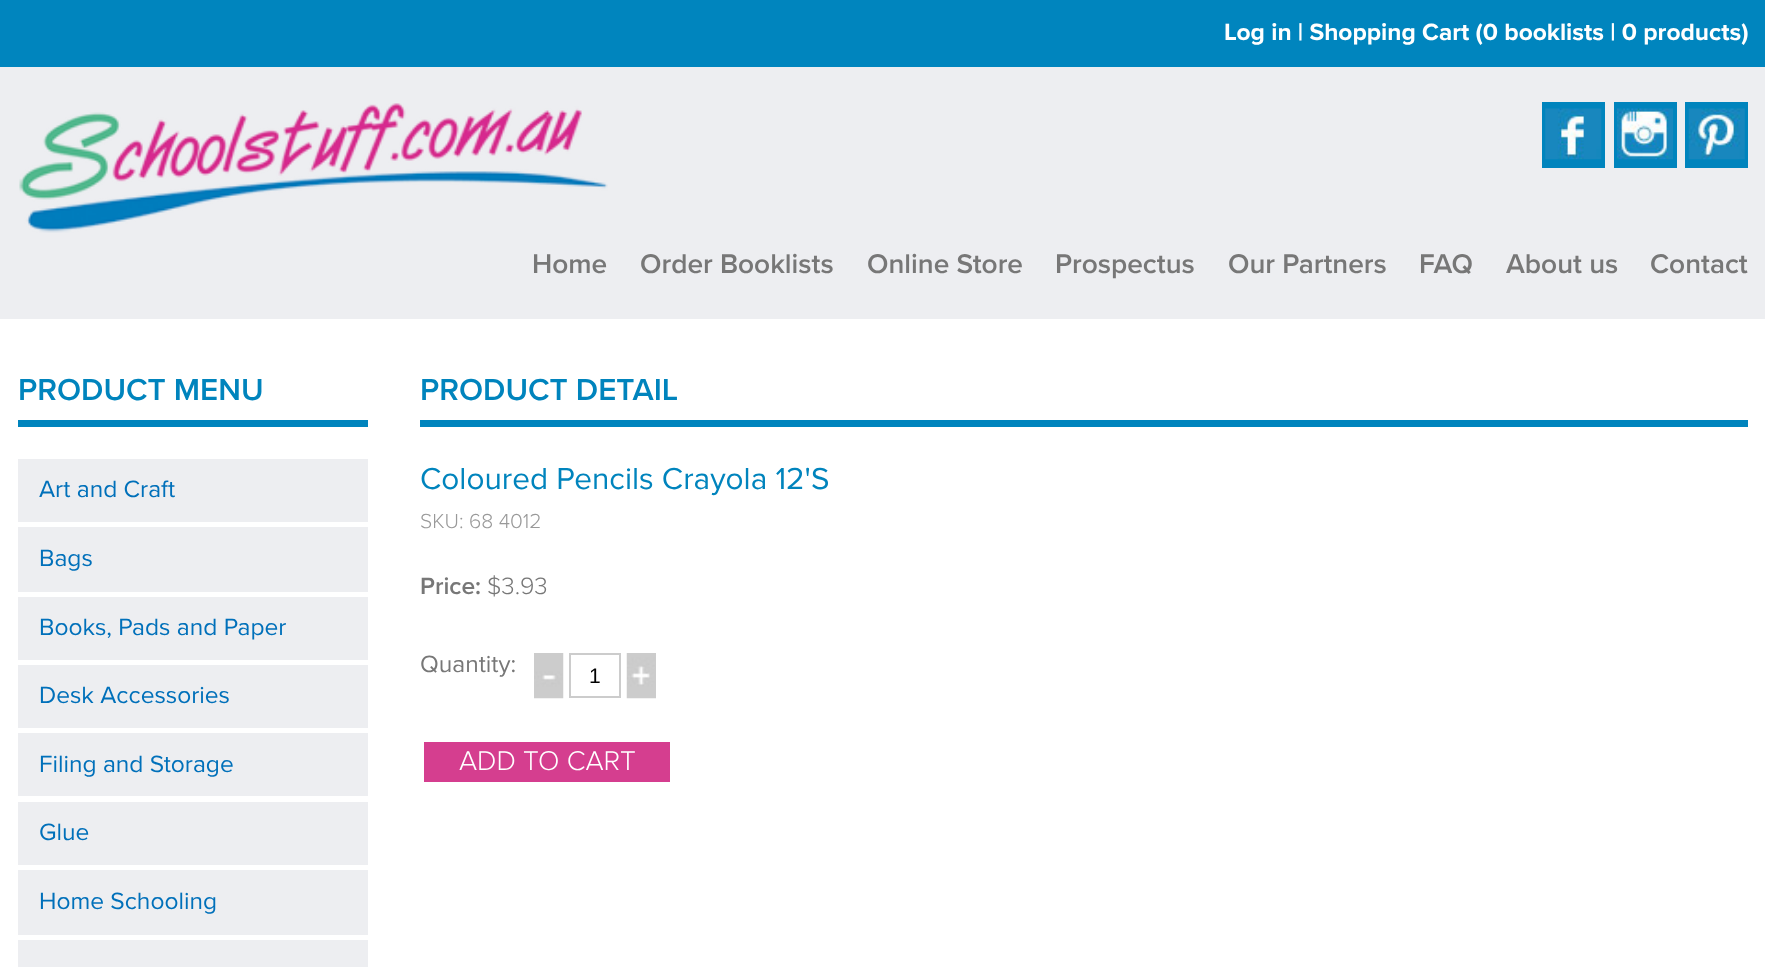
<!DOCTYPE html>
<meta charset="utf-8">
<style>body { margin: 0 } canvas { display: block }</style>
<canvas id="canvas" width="1765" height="967"></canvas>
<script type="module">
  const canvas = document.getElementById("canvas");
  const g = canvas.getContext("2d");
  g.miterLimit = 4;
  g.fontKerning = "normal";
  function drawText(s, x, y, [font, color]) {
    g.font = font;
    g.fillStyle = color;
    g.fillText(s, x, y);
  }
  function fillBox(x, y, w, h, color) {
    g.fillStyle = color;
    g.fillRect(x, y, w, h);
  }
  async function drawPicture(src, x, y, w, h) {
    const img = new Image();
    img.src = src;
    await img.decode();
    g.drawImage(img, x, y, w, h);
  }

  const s1 = ["bold 24.5px Proxima Nova", "#FFFFFF"];
  const s2 = ["600 28px Proxima Nova", "#777777"];
  const s3 = ["600 31.5px Proxima Nova", "#0084BD"];
  const s4 = ["24.5px Proxima Nova", "#0070BA"];
  const s5 = ["31.5px Proxima Nova", "#0084BD"];
  const s6 = ["300 21px Proxima Nova", "#999999"];
  const s7 = ["600 24.5px Proxima Nova", "#777777"];
  const s8 = ["300 24.5px Proxima Nova", "#777777"];
  const s9 = ["24.5px Proxima Nova", "#777777"];
  const s10 = ["21px Liberation Sans", "#000000"];
  const s11 = ["300 28px Proxima Nova", "#FFFFFF"];

  fillBox(0, 0, 1765, 967, "#EDEEF1");
  fillBox(0, 0, 1765, 67, "#0085BE");
  drawText("Log in | Shopping Cart (0 booklists | 0 products)", 1224, 40, s1);
  await drawPicture("pic1.png", 19, 103, 589, 130);
  fillBox(1542, 102, 63, 66, "#0084BD");
  await drawPicture("pic2.png", 1545, 108, 57, 52);
  fillBox(1614, 102, 63, 66, "#0084BD");
  await drawPicture("pic3.png", 1617, 108, 56, 52);
  fillBox(1685, 102, 63, 66, "#0084BD");
  await drawPicture("pic4.png", 1688, 108, 57, 52);
  drawText("Home", 532, 273, s2);
  drawText("Order Booklists", 640, 273, s2);
  drawText("Online Store", 867, 273, s2);
  drawText("Prospectus", 1055, 273, s2);
  drawText("Our Partners", 1228, 273, s2);
  drawText("FAQ", 1419, 273, s2);
  drawText("About us", 1506, 273, s2);
  drawText("Contact", 1650, 273, s2);
  fillBox(0, 319, 1765, 648, "#FFFFFF");
  fillBox(18, 420, 350, 7, "#0084BD");
  drawText("PRODUCT MENU", 18, 400, s3);
  fillBox(18, 459, 350, 63, "#EDEEF1");
  drawText("Art and Craft", 39, 497, s4);
  fillBox(18, 527, 350, 65, "#EDEEF1");
  drawText("Bags", 39, 566, s4);
  fillBox(18, 597, 350, 63, "#EDEEF1");
  drawText("Books, Pads and Paper", 39, 635, s4);
  fillBox(18, 665, 350, 63, "#EDEEF1");
  drawText("Desk Accessories", 39, 703, s4);
  fillBox(18, 733, 350, 63, "#EDEEF1");
  drawText("Filing and Storage", 39, 772, s4);
  fillBox(18, 802, 350, 63, "#EDEEF1");
  drawText("Glue", 39, 840, s4);
  fillBox(18, 870, 350, 65, "#EDEEF1");
  drawText("Home Schooling", 39, 909, s4);
  fillBox(18, 940, 350, 27, "#EDEEF1");
  fillBox(420, 420, 1328, 7, "#0084BD");
  drawText("PRODUCT DETAIL", 420, 400, s3);
  drawText("Coloured Pencils Crayola 12'S", 420, 489, s5);
  drawText("SKU: 68 4012", 420, 528, s6);
  drawText("Price:", 420, 594, s7);
  drawText("$3.93", 487, 594, s8);
  drawText("Quantity:", 420, 672, s9);
  await drawPicture("pic5.png", 534, 653, 30, 46);
  g.strokeStyle = "#CCCCCC";
  g.lineWidth = 2;
  g.strokeRect(570, 654, 50, 43);
  drawText("1", 589, 683, s10);
  await drawPicture("pic6.png", 626, 653, 30, 46);
  fillBox(424, 742, 246, 40, "#D53E8F");
  drawText("ADD TO CART", 459, 770, s11);
</script>
